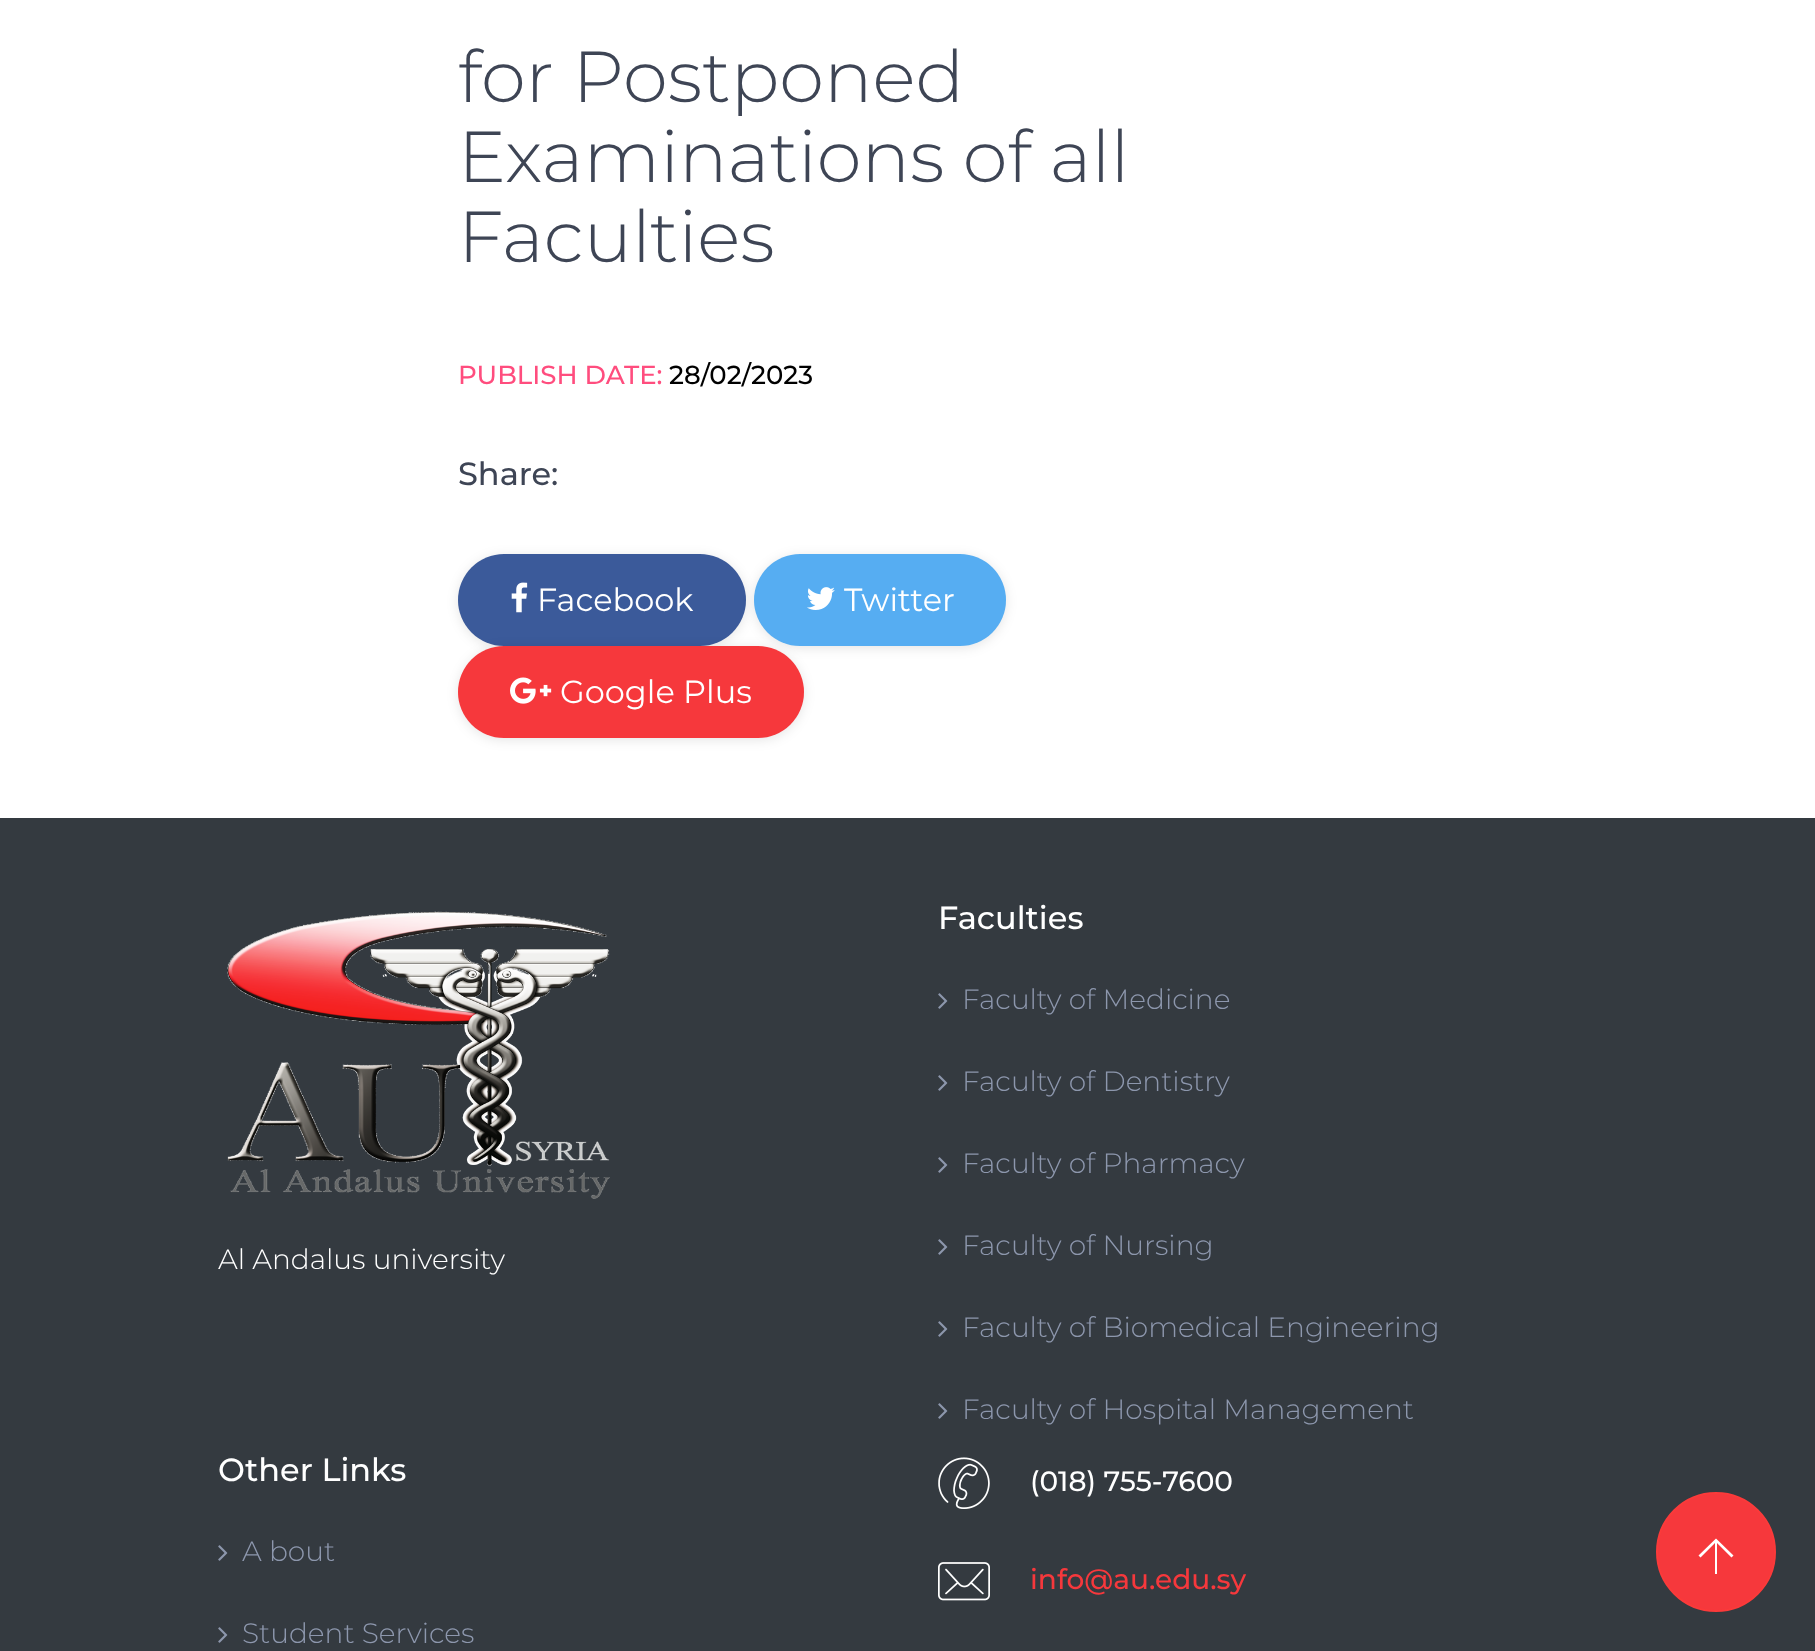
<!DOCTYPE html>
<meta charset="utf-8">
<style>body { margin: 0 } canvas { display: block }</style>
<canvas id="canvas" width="1815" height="1651"></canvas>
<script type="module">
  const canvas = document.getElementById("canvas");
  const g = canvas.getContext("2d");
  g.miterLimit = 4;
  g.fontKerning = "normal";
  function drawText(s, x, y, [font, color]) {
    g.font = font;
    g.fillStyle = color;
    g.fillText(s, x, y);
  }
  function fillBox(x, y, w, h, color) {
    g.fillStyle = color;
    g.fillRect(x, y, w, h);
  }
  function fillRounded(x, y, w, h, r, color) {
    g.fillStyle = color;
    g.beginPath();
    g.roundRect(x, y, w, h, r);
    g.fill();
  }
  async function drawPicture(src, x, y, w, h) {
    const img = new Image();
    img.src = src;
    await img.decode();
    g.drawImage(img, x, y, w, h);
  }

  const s1 = ["300 72px Montserrat", "#3E4555"];
  const s2 = ["500 26px Montserrat", "#FF4D7E"];
  const s3 = ["500 26px Montserrat", "#000000"];
  const s4 = ["500 32px Montserrat", "#3E4555"];
  const s5 = ["32px Montserrat", "#FFFFFF"];
  const s6 = ["300 28px Montserrat", "#FFFFFF"];
  const s7 = ["500 32px Montserrat", "#FFFFFF"];
  const s8 = ["300 28px Montserrat", "#8D97AD"];
  const s9 = ["500 28px Montserrat", "#FFFFFF"];
  const s10 = ["500 28px Montserrat", "#F6383C"];

  fillBox(0, 0, 1815, 1651, "#FFFFFF");
  drawText("for Postponed", 458, 102, s1);
  drawText("Examinations of all", 458, 182, s1);
  drawText("Faculties", 458, 262, s1);
  drawText("PUBLISH DATE:", 458, 384, s2);
  drawText("28/02/2023", 669, 384, s3);
  drawText("Share:", 458, 485, s4);
  g.fillStyle = "rgba(0, 0, 0, 0.1)";
  g.filter = "blur(6px)";
  g.beginPath();
  g.roundRect(458, 556, 288, 92, 46);
  g.fill();
  g.filter = "none";
  fillRounded(458, 554, 288, 92, 46, "#3B5A9A");
  await drawPicture("pic1.png", 511, 582, 17, 31);
  drawText("Facebook", 537, 611, s5);
  g.fillStyle = "rgba(0, 0, 0, 0.1)";
  g.filter = "blur(6px)";
  g.beginPath();
  g.roundRect(754, 556, 252, 92, 46);
  g.fill();
  g.filter = "none";
  fillRounded(754, 554, 252, 92, 46, "#56ADF2");
  await drawPicture("pic2.png", 807, 587, 28, 23);
  drawText("Twitter", 844, 611, s5);
  g.fillStyle = "rgba(0, 0, 0, 0.1)";
  g.filter = "blur(6px)";
  g.beginPath();
  g.roundRect(458, 648, 346, 92, 46);
  g.fill();
  g.filter = "none";
  fillRounded(458, 646, 346, 92, 46, "#F6383C");
  await drawPicture("pic3.png", 510, 677, 42, 27);
  drawText("Google Plus", 560, 703, s5);
  fillBox(0, 818, 1815, 833, "#343A40");
  await drawPicture("pic4.png", 227, 911, 383, 288);
  drawText("Al Andalus university", 218, 1269, s6);
  drawText("Faculties", 938, 929, s7);
  await drawPicture("pic5.png", 938, 993, 10, 16);
  drawText("Faculty of Medicine", 962, 1009, s8);
  await drawPicture("pic5.png", 938, 1075, 10, 16);
  drawText("Faculty of Dentistry", 962, 1091, s8);
  await drawPicture("pic5.png", 938, 1157, 10, 16);
  drawText("Faculty of Pharmacy", 962, 1173, s8);
  await drawPicture("pic5.png", 938, 1239, 10, 16);
  drawText("Faculty of Nursing", 962, 1255, s8);
  await drawPicture("pic5.png", 938, 1321, 10, 16);
  drawText("Faculty of Biomedical Engineering", 962, 1337, s8);
  await drawPicture("pic5.png", 938, 1403, 10, 16);
  drawText("Faculty of Hospital Management", 962, 1419, s8);
  drawText("Other Links", 218, 1481, s7);
  await drawPicture("pic5.png", 218, 1545, 10, 16);
  drawText("A bout", 242, 1561, s8);
  await drawPicture("pic5.png", 218, 1627, 10, 16);
  drawText("Student Services", 242, 1643, s8);
  await drawPicture("pic6.png", 938, 1457, 52, 52);
  drawText("(018) 755-7600", 1030, 1491, s9);
  await drawPicture("pic7.png", 938, 1562, 52, 39);
  drawText("info@au.edu.sy", 1030, 1589, s10);
  g.beginPath();
  g.arc(1716, 1552, 59, 0, Math.PI * 2);
  g.fill();
  g.strokeStyle = "#FB3A3A";
  g.lineWidth = 2;
  g.stroke();
  g.fillStyle = "#FFFFFF";
  g.beginPath();
  g.moveTo(1731.5, 1557.5);
  g.lineTo(1717, 1543);
  g.lineTo(1717, 1574);
  g.lineTo(1715, 1574);
  g.lineTo(1715, 1543);
  g.lineTo(1700.5, 1557.5);
  g.lineTo(1698.5, 1555.5);
  g.lineTo(1716, 1538.5);
  g.lineTo(1733.5, 1555.5);
  g.closePath();
  g.fill();
</script>
